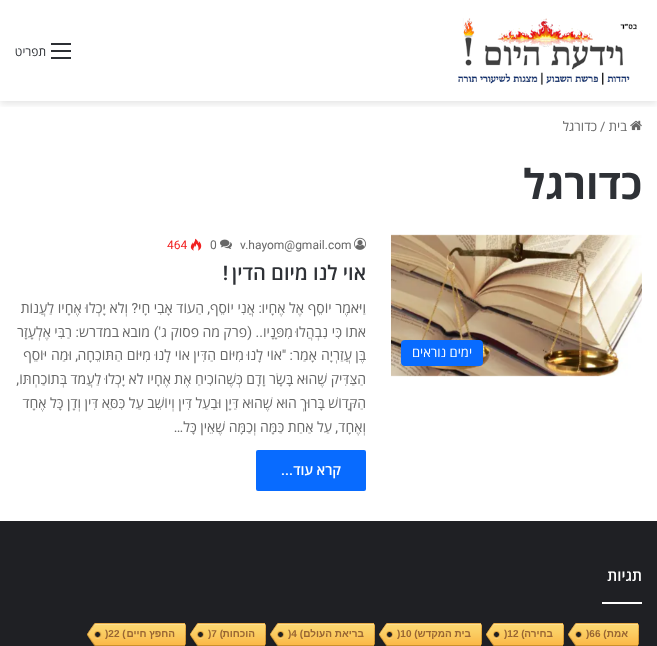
<!DOCTYPE html>
<meta charset="utf-8">
<style>body { margin: 0 } canvas { display: block }</style>
<canvas id="canvas" width="657" height="646"></canvas>
<script type="module">
  const canvas = document.getElementById("canvas");
  const g = canvas.getContext("2d");
  g.miterLimit = 4;
  g.fontKerning = "normal";
  function drawText(s, x, y, [font, color]) {
    g.font = font;
    g.fillStyle = color;
    g.fillText(s, x, y);
  }
  function fillBox(x, y, w, h, color) {
    g.fillStyle = color;
    g.fillRect(x, y, w, h);
  }
  function fillRounded(x, y, w, h, r, color) {
    g.fillStyle = color;
    g.beginPath();
    g.roundRect(x, y, w, h, r);
    g.fill();
  }
  async function drawPicture(src, x, y, w, h) {
    const img = new Image();
    img.src = src;
    await img.decode();
    g.drawImage(img, x, y, w, h);
  }

  const s1 = ["12px Open Sans", "#2E3136"];
  const s2 = ["13px Open Sans", "#686868"];
  const s3 = ["13px Roboto", "#686868"];
  const s4 = ["bold 41px Open Sans", "#2E3136"];
  const s5 = ["13px Open Sans", "#FFFFFF"];
  const s6 = ["12px Roboto", "#686868"];
  const s7 = ["12px Roboto", "#F12020"];
  const s8 = ["600 20px Open Sans", "#2E3136"];
  const s9 = ["600 20px Roboto", "#2E3136"];
  const s10 = ["14px Open Sans", "#686868"];
  const s11 = ["14px Roboto", "#686868"];
  const s12 = ["600 14px Open Sans", "#FFFFFF"];
  const s13 = ["600 14px Roboto", "#FFFFFF"];
  const s14 = ["600 15px Open Sans", "#FFFFFF"];
  const s15 = ["bold 10px Liberation Sans", "#986533"];

  fillBox(0, 0, 657, 646, "#FFFFFF");
  g.save();
  g.beginPath();
  g.rect(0, 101, 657, 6);
  g.clip();
  g.fillStyle = "rgba(0, 0, 0, 0.1)";
  g.filter = "blur(3.5px)";
  g.beginPath();
  g.rect(0, 3, 657, 101);
  g.fill();
  g.filter = "none";
  g.restore();
  await drawPicture("pic1.png", 458, 18, 179, 67);
  fillBox(51, 50, 20, 2, "#2C2F34");
  fillBox(51, 43, 20, 2, "#2C2F34");
  fillBox(51, 57, 20, 2, "#2C2F34");
  g.direction = "rtl";
  drawText("תפריט", 46, 56, s1);
  await drawPicture("pic2.png", 630, 120, 12, 11);
  drawText("בית", 627, 131, s2);
  g.direction = "ltr";
  drawText("/", 600, 131, s3);
  g.direction = "rtl";
  drawText("כדורגל", 597, 131, s2);
  drawText("כדורגל", 642, 199, s4);
  await drawPicture("pic3.png", 391, 234, 251, 143);
  fillRounded(401, 340, 82, 26, 4, "#086BFF");
  drawText("ימים נוראים", 472, 357, s5);
  await drawPicture("pic4.png", 354, 237, 12, 13);
  g.direction = "ltr";
  drawText("v.hayom@gmail.com", 240, 249, s6);
  await drawPicture("pic5.png", 220, 239, 12, 10);
  drawText("0", 210, 249, s6);
  await drawPicture("pic6.png", 190, 238, 12, 13);
  drawText("464", 167, 249, s7);
  g.direction = "rtl";
  drawText("אוי לנו מיום הדין", 366, 280, s8);
  drawText("!", 228, 280, s9);
  drawText("וַיֹּאמֶר יוֹסֵף אֶל אֶחָיו", 366, 313, s10);
  drawText(":", 262, 313, s11);
  drawText("אֲנִי יוֹסֵף", 255, 313, s10);
  drawText(",", 210, 313, s11);
  drawText("הַעוֹד אָבִי חָי", 204, 313, s10);
  drawText("?", 138, 313, s11);
  drawText("וְלֹא יָכְלוּ אֶחָיו לַעֲנוֹת", 128, 313, s10);
  drawText("אֹתוֹ", 366, 337, s10);
  drawText("כִּי", 342, 337, s10);
  drawText("נִבְהֲלוּ", 328, 337, s10);
  drawText("מִפָּנָיו", 293, 337, s10);
  drawText(".. (", 263, 337, s11);
  drawText("פרק", 247, 337, s10);
  drawText("מה", 220, 337, s10);
  drawText("פסוק", 199, 337, s10);
  drawText("ג", 167, 337, s10);
  drawText("')", 161, 337, s11);
  drawText("מובא", 150, 337, s10);
  drawText("במדרש", 119, 337, s10);
  drawText(":", 79, 337, s11);
  drawText("רַבִּי", 72, 337, s10);
  drawText("אֶלְעָזָר", 51, 337, s10);
  drawText("בֶּן", 366, 360, s10);
  drawText("עֲזַרְיָה", 352, 360, s10);
  drawText("אָמַר", 317, 360, s10);
  drawText(": \"", 293, 360, s11);
  drawText("אוֹי", 282, 360, s10);
  drawText("לָנוּ", 263, 360, s10);
  drawText("מִיּוֹם", 244, 360, s10);
  drawText("הַדִּין", 216, 360, s10);
  drawText("אוֹי", 190, 360, s10);
  drawText("לָנוּ", 171, 360, s10);
  drawText("מִיּוֹם", 151, 360, s10);
  drawText("הַתּוֹכֵחָה", 123, 360, s10);
  drawText(",", 78, 360, s11);
  drawText("וּמַה", 72, 360, s10);
  drawText("יּוֹסֵף", 47, 360, s10);
  g.wordSpacing = "-0.2px";
  drawText("הַצַּדִּיק שֶׁהוּא בָּשָׂר וָדָם כְּשֶׁהוֹכִיחַ אֶת אֶחָיו לֹא יָכְלוּ לַעֲמֹד בְּתוֹכַחְתּוֹ", 366, 384, s10);
  g.wordSpacing = "0px";
  drawText(",", 19, 384, s11);
  g.wordSpacing = "-0.2px";
  drawText("הַקָּדוֹשׁ בָּרוּךְ הוּא שֶׁהוּא דַּיָן וּבַעַל דִּין וְיוֹשֵׁב עַל כִּסֵּא דִּין וְדָן כָּל אֶחָד", 366, 408, s10);
  g.wordSpacing = "0px";
  drawText("וְאֶחָד", 366, 432, s10);
  drawText(",", 338, 432, s11);
  g.wordSpacing = "-0.2px";
  drawText("עַל אַחַת כַּמָּה וְכַמָּה שֶׁאֵין כָּל", 332, 432, s10);
  g.wordSpacing = "0px";
  drawText("…", 183, 432, s11);
  fillRounded(256, 450, 110, 41, 2, "#086BFF");
  g.wordSpacing = "-0.2px";
  drawText("קרא עוד", 341, 475, s12);
  g.wordSpacing = "0px";
  drawText("...", 293, 475, s13);
  fillBox(0, 521, 657, 125, "#1F2024");
  drawText("תגיות", 642, 581, s14);
  fillBox(602, 602, 40, 2, "#FDFDFD");
  await drawPicture("pic7.png", 568, 623, 70, 23);
  await drawPicture("pic8.png", 638, 624, 1, 22);
  drawText("אמת", 628, 637, s15);
  g.direction = "ltr";
  drawText(")66 (", 586, 637, s15);
  await drawPicture("pic9.png", 486, 623, 77, 23);
  await drawPicture("pic8.png", 563, 624, 1, 22);
  g.direction = "rtl";
  drawText("בחירה", 553, 637, s15);
  g.direction = "ltr";
  drawText(")12 (", 504, 637, s15);
  await drawPicture("pic10.png", 379, 623, 102, 23);
  await drawPicture("pic8.png", 481, 624, 1, 22);
  g.direction = "rtl";
  drawText("בית המקדש", 471, 637, s15);
  g.direction = "ltr";
  drawText(")10 (", 397, 637, s15);
  await drawPicture("pic11.png", 270, 623, 104, 23);
  await drawPicture("pic8.png", 374, 624, 1, 22);
  g.direction = "rtl";
  drawText("בריאת העולם", 364, 637, s15);
  g.direction = "ltr";
  drawText(")4 (", 288, 637, s15);
  await drawPicture("pic12.png", 190, 623, 75, 23);
  await drawPicture("pic8.png", 265, 624, 1, 22);
  g.direction = "rtl";
  drawText("הוכחות", 255, 637, s15);
  g.direction = "ltr";
  drawText(")7 (", 208, 637, s15);
  await drawPicture("pic13.png", 87, 623, 98, 23);
  await drawPicture("pic8.png", 185, 624, 1, 22);
  g.direction = "rtl";
  drawText("החפץ חיים", 175, 637, s15);
  g.direction = "ltr";
  drawText(")22 (", 105, 637, s15);
</script>
